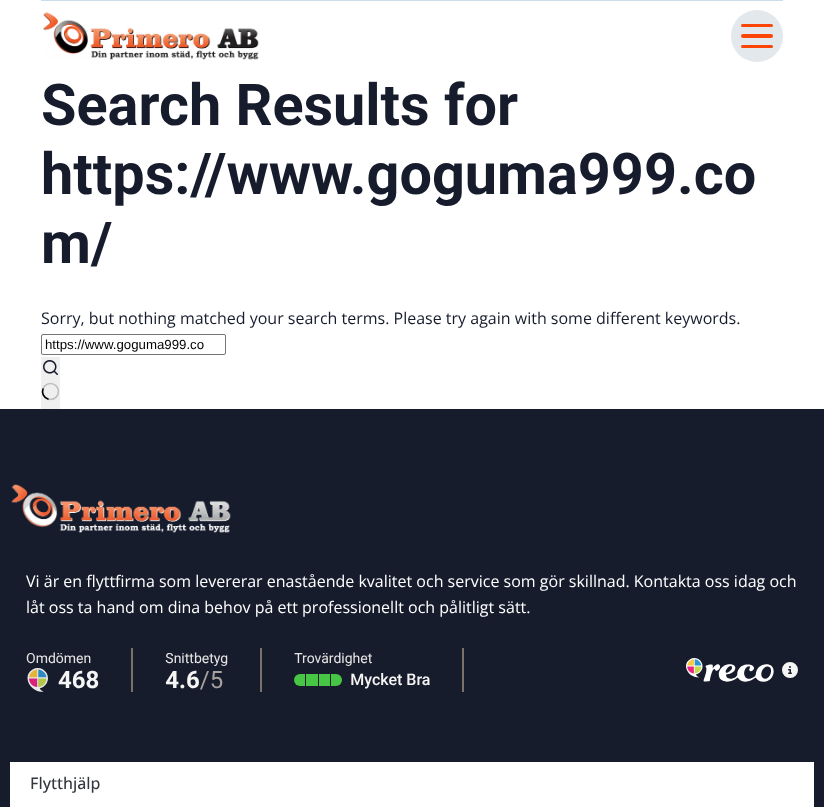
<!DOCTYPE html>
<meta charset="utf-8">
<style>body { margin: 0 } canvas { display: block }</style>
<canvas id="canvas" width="824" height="807"></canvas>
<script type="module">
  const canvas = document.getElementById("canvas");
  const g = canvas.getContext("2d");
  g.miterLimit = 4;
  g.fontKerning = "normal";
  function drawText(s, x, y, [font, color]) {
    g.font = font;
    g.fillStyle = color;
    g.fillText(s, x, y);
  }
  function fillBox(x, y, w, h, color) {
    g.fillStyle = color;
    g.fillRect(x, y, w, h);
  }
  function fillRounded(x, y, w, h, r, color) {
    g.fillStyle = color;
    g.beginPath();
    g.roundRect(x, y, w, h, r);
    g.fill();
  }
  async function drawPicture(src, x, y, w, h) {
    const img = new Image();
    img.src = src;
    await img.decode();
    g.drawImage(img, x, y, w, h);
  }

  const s1 = ["bold 57.6px Roboto", "#171C2D"];
  const s2 = ["16px Open Sans", "#171C2D"];
  const s3 = ["13.25px Liberation Sans", "#000000"];
  const s4 = ["16px Open Sans", "#FFFFFF"];
  const s5 = ["500 16px Open Sans", "#33373D"];

  fillBox(0, 0, 824, 807, "#FFFFFF");
  fillBox(41, 0, 742, 1, "#CCDCEB");
  await drawPicture("pic1.png", 43, 12, 216, 48);
  g.fillStyle = "#E3E8ED";
  g.beginPath();
  g.arc(757, 36, 26, 0, Math.PI * 2);
  g.fill();
  fillRounded(741, 24, 32, 3, 1.5, "#FB4507");
  fillRounded(741, 34, 32, 4, 2, "#FB4507");
  fillRounded(741, 45, 32, 3, 1.5, "#FB4507");
  drawText("Search Results for", 41, 125, s1);
  drawText("https://www.goguma999.co", 41, 194, s1);
  drawText("m/", 41, 263, s1);
  drawText("Sorry, but nothing matched your search terms. Please try again with some different keywords.", 41, 324, s2);
  g.beginPath();
  g.roundRect(41.5, 334.5, 184, 20, 1.5);
  g.strokeStyle = "#767676";
  g.stroke();
  drawText("https://www.goguma999.co", 45, 349, s3);
  fillBox(41, 357, 19, 52, "#EFEFEF");
  await drawPicture("pic2.png", 43, 360, 15, 15);
  g.beginPath();
  g.arc(50.5, 391.5, 8, 0, Math.PI * 2);
  g.strokeStyle = "#BFBFBF";
  g.lineWidth = 1.6;
  g.stroke();
  g.beginPath();
  g.moveTo(48, 399);
  g.bezierCurveTo(43.5, 397.5, 41.5, 393, 43, 389);
  g.strokeStyle = "#000000";
  g.lineCap = "round";
  g.stroke();
  fillBox(0, 409, 824, 398, "#171C2D");
  await drawPicture("pic3.png", 11, 484, 220, 49);
  drawText("Vi är en flyttfirma som levererar enastående kvalitet och service som gör skillnad. Kontakta oss idag och", 26, 587, s4);
  drawText("låt oss ta hand om dina behov på ett professionellt och pålitligt sätt.", 26, 613, s4);
  await drawPicture("pic4.png", 26, 648, 772, 44);
  fillBox(10, 762, 804, 45, "#FFFFFF");
  drawText("Flytthjälp", 30, 789, s5);
</script>
